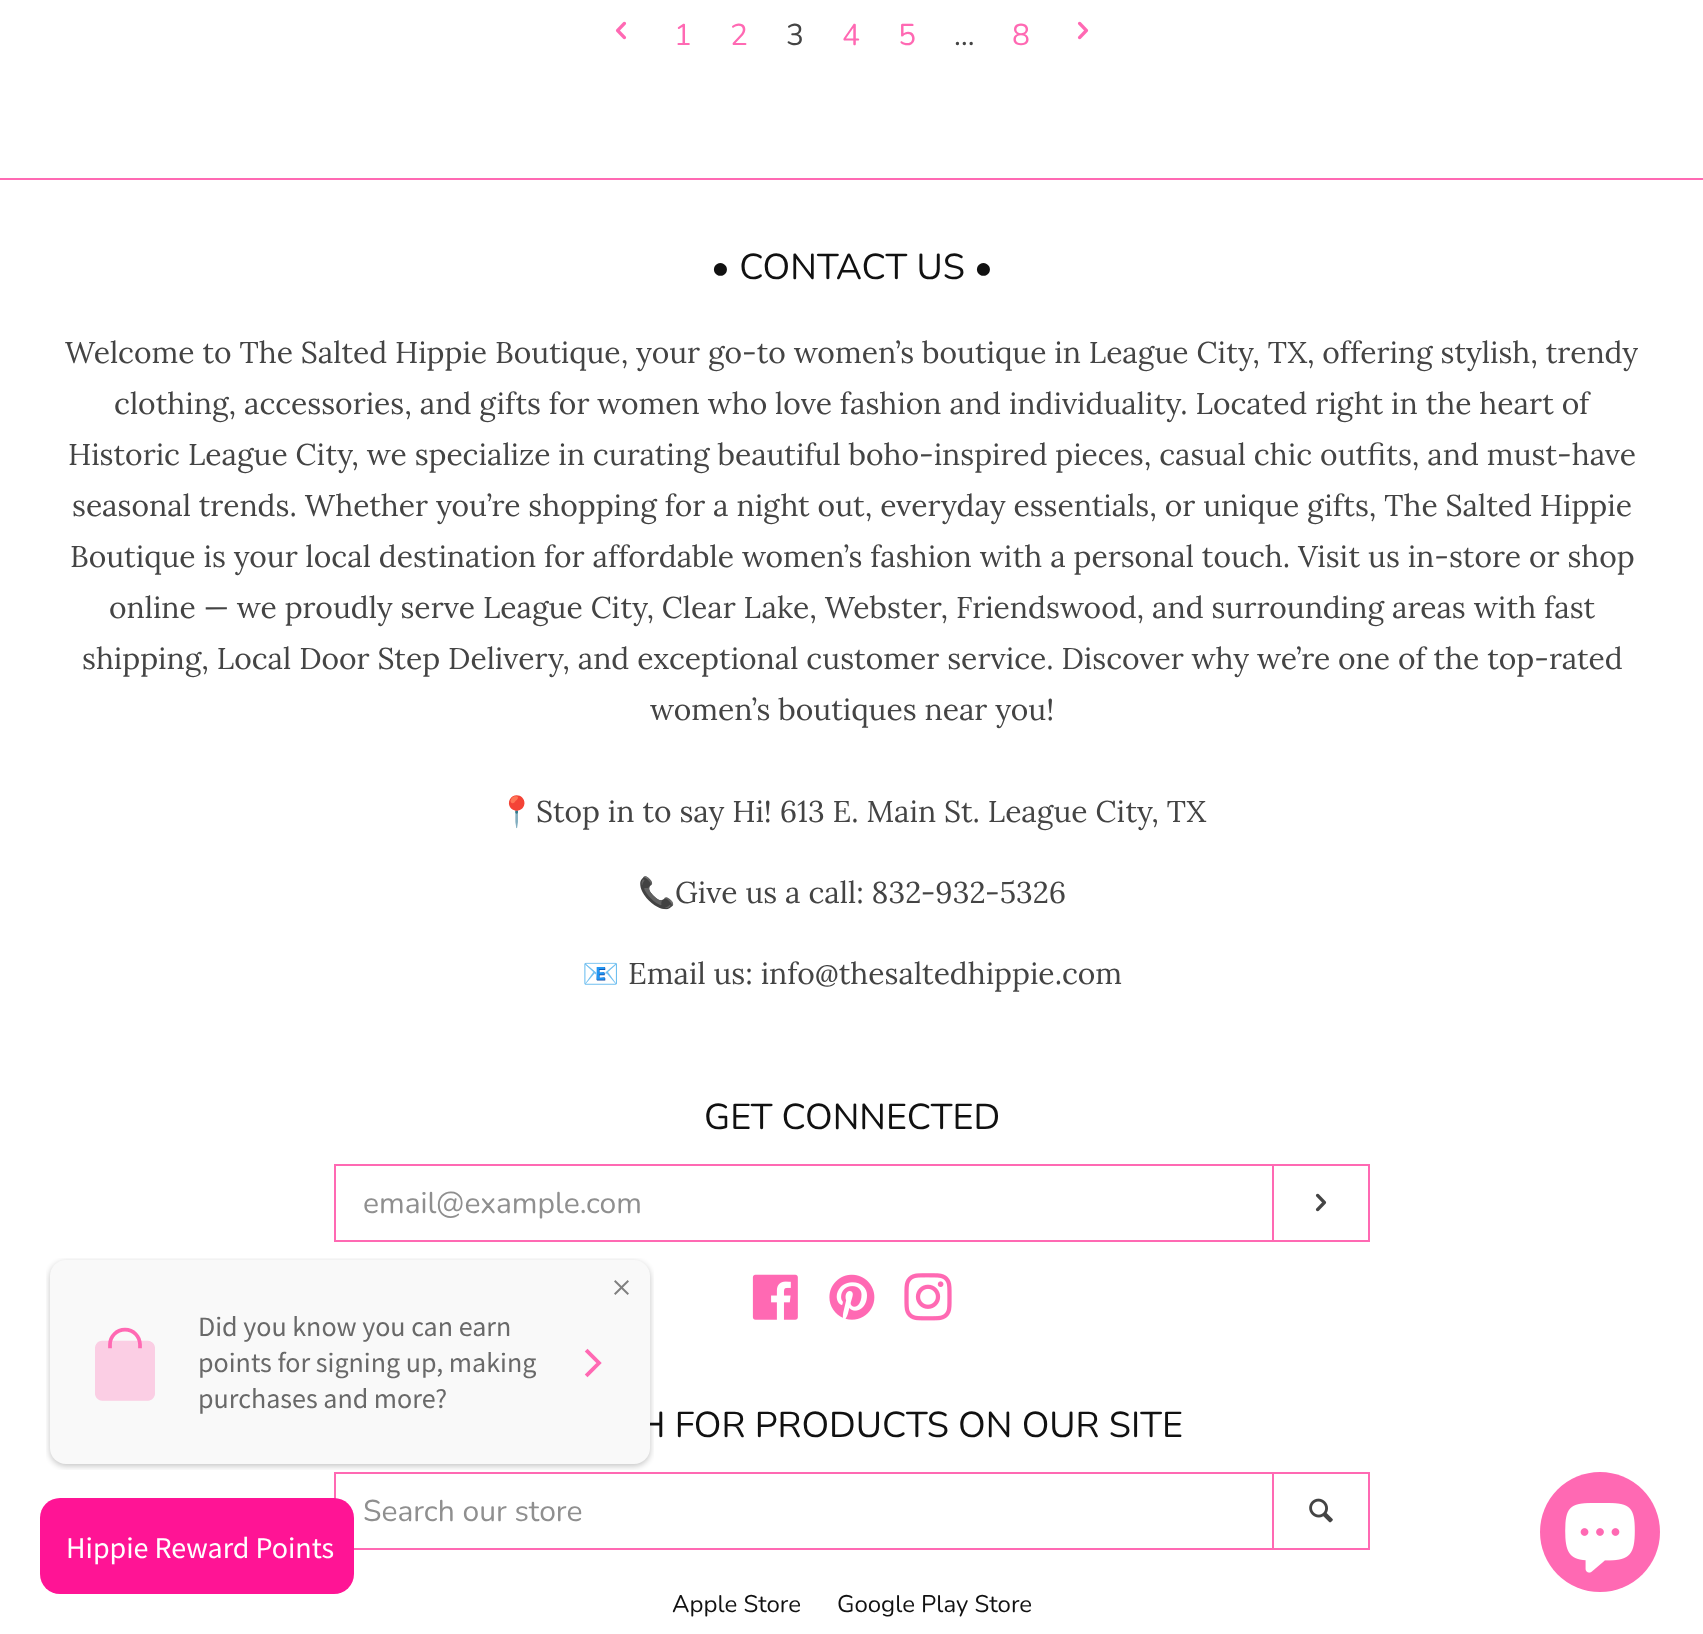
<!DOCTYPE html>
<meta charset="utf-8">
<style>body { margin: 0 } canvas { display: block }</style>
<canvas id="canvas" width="1703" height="1634"></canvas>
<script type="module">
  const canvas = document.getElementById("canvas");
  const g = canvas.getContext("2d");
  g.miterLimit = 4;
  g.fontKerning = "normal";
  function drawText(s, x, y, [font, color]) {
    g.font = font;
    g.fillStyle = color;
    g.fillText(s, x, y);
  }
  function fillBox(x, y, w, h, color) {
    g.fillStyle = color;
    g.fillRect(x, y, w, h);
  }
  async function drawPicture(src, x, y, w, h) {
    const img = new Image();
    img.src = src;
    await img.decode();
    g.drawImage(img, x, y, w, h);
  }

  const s1 = ["200 30px Nunito", "#FF69B3"];
  const s2 = ["200 30px Nunito", "#444444"];
  const s3 = ["200 36px Nunito", "#111111"];
  const s4 = ["30px Lora", "#444444"];
  const s5 = ["30px Noto Color Emoji", "#444444"];
  const s6 = ["200 30px Nunito", "#8F8F8F"];
  const s7 = ["200 24px Nunito", "#111111"];

  fillBox(0, 0, 1703, 1634, "#FFFFFF");
  await drawPicture("pic1.png", 615, 21, 12, 19);
  drawText("1", 674, 45, s1);
  drawText("2", 730, 45, s1);
  drawText("3", 786, 45, s2);
  drawText("4", 842, 45, s1);
  drawText("5", 898, 45, s1);
  drawText("…", 954, 45, s2);
  drawText("8", 1012, 45, s1);
  await drawPicture("pic2.png", 1077, 21, 12, 19);
  fillBox(0, 178, 1703, 2, "#FF69B3");
  drawText("• CONTACT US •", 711, 279, s3);
  drawText("Welcome to The Salted Hippie Boutique, your go-to women’s boutique in League City, TX, offering stylish, trendy", 65, 363, s4);
  drawText("clothing, accessories, and gifts for women who love fashion and individuality. Located right in the heart of", 114, 414, s4);
  drawText("Historic League City, we specialize in curating beautiful boho-inspired pieces, casual chic outfits, and must-have", 68, 465, s4);
  drawText("seasonal trends. Whether you’re shopping for a night out, everyday essentials, or unique gifts, The Salted Hippie", 72, 516, s4);
  drawText("Boutique is your local destination for affordable women’s fashion with a personal touch. Visit us in-store or shop", 70, 567, s4);
  drawText("online — we proudly serve League City, Clear Lake, Webster, Friendswood, and surrounding areas with fast", 109, 618, s4);
  drawText("shipping, Local Door Step Delivery, and exceptional customer service. Discover why we’re one of the top-rated", 82, 669, s4);
  drawText("women’s boutiques near you!", 650, 720, s4);
  drawText("📍", 498, 822, s5);
  drawText("Stop in to say Hi! 613 E. Main St. League City, TX", 536, 822, s4);
  drawText("📞", 638, 903, s5);
  drawText("Give us a call: 832-932-5326", 675, 903, s4);
  drawText("📧", 582, 984, s5);
  drawText("Email us: info@thesaltedhippie.com", 628, 984, s4);
  drawText("GET CONNECTED", 704, 1129, s3);
  g.strokeStyle = "#FF69B3";
  g.lineWidth = 2;
  g.strokeRect(335, 1165, 1034, 76);
  fillBox(1272, 1166, 2, 74, "#FF69B3");
  drawText("email@example.com", 363, 1213, s6);
  await drawPicture("pic3.png", 1315, 1193, 12, 19);
  await drawPicture("pic4.png", 752, 1274, 46, 46);
  await drawPicture("pic5.png", 829, 1274, 46, 46);
  await drawPicture("pic6.png", 904, 1273, 48, 48);
  drawText("H FOR PRODUCTS ON OUR SITE", 638, 1437, s3);
  g.strokeRect(335, 1473, 1034, 76);
  fillBox(1272, 1474, 2, 74, "#FF69B3");
  drawText("Search our store", 363, 1521, s6);
  await drawPicture("pic7.png", 1309, 1498, 24, 25);
  drawText("Apple Store", 672, 1612, s7);
  drawText("Google Play Store", 837, 1612, s7);
  await drawPicture("pic8.png", 46, 1258, 608, 212);
  await drawPicture("pic9.png", 40, 1498, 314, 96);
  g.fillStyle = "#FF69B3";
  g.beginPath();
  g.arc(1600, 1532, 60, 0, Math.PI * 2);
  g.fill();
  await drawPicture("pic10.png", 1565, 1503, 70, 70);
</script>
